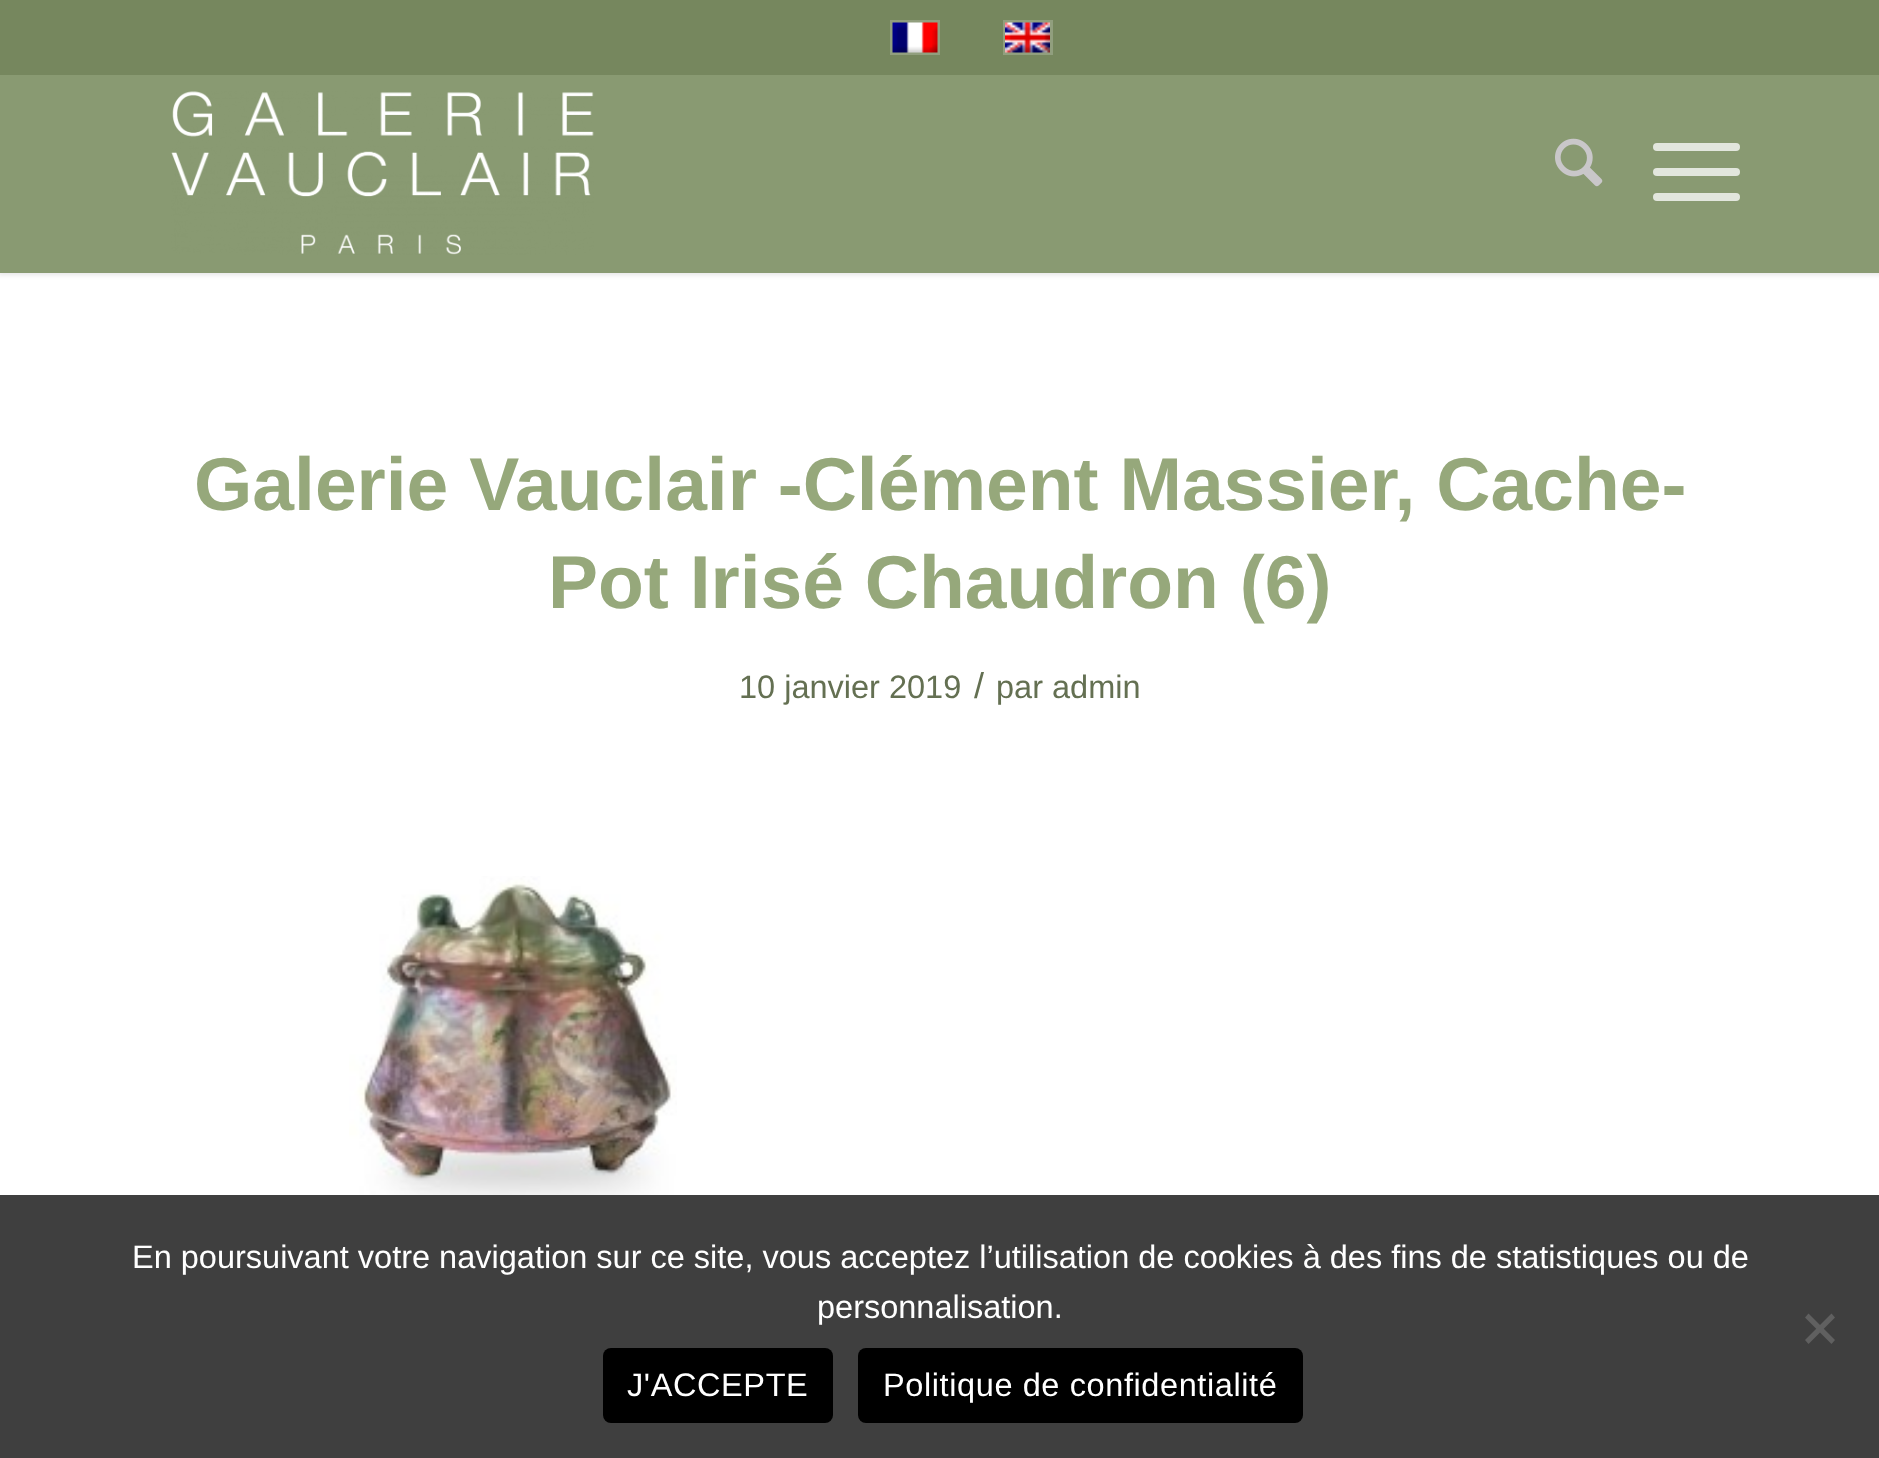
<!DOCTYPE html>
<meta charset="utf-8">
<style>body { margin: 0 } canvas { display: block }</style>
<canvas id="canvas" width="1879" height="1458"></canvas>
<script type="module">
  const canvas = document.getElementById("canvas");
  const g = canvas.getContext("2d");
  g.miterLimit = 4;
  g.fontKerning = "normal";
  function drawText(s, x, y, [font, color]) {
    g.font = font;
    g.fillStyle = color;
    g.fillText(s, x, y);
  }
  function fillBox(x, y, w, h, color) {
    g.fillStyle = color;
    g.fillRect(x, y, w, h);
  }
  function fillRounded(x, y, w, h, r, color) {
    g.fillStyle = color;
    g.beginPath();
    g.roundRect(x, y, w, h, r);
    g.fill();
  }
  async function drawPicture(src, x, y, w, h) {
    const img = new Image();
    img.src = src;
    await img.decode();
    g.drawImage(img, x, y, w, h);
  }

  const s1 = ["bold 75px Liberation Sans", "#96A87B"];
  const s2 = ["32.5px Liberation Sans", "#647052"];
  const s3 = ["36px Liberation Sans", "#647052"];
  const s4 = ["32.5px Liberation Sans", "#FFFFFF"];

  fillBox(0, 0, 1879, 1458, "#FFFFFF");
  g.fillStyle = "rgba(0, 0, 0, 0.1)";
  g.filter = "blur(2.5px)";
  g.beginPath();
  g.rect(-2, -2, 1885, 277);
  g.fill();
  g.filter = "none";
  fillBox(0, 0, 1879, 75, "#76875E");
  g.strokeStyle = "#919F7E";
  g.lineWidth = 3;
  g.strokeRect(891.5, 21.5, 47, 32);
  await drawPicture("pic1.png", 892, 22, 46, 31);
  g.strokeRect(1004.5, 21.5, 47, 32);
  await drawPicture("pic2.png", 1005, 22, 45, 31);
  fillBox(0, 75, 1879, 198, "#899A72");
  await drawPicture("pic3.png", 171, 91, 423, 164);
  await drawPicture("pic4.png", 1555, 138, 48, 49);
  fillRounded(1653, 168, 87, 8, 4, "#E2E6DD");
  fillRounded(1653, 143, 87, 8, 4, "#E2E6DD");
  fillRounded(1653, 193, 87, 8, 4, "#E2E6DD");
  drawText("Galerie Vauclair -Clément Massier, Cache-", 194, 510, s1);
  drawText("Pot Irisé Chaudron (6)", 548, 608, s1);
  drawText("10 janvier 2019", 739, 698, s2);
  drawText("/", 974, 698, s3);
  drawText("par admin", 996, 698, s2);
  await drawPicture("pic5.png", 349, 876, 328, 319);
  fillBox(0, 1195, 1879, 263, "#3F3F3F");
  drawText("En poursuivant votre navigation sur ce site, vous acceptez l’utilisation de cookies à des fins de statistiques ou de", 132, 1268, s4);
  drawText("personnalisation.", 817, 1318, s4);
  g.fillStyle = "#606060";
  g.beginPath();
  g.moveTo(1831.5, 1313.5);
  g.lineTo(1835, 1317.5);
  g.lineTo(1808.5, 1344);
  g.lineTo(1805, 1340);
  g.closePath();
  g.fill();
  g.beginPath();
  g.moveTo(1805, 1317.5);
  g.lineTo(1808.5, 1313.5);
  g.lineTo(1835, 1340);
  g.lineTo(1831.5, 1344);
  g.closePath();
  g.fill();
  fillRounded(603, 1348, 230, 75, 8, "#000000");
  g.letterSpacing = "0.6px";
  drawText("J'ACCEPTE", 627, 1396, s4);
  fillRounded(858, 1348, 445, 75, 8, "#000000");
  drawText("Politique de confidentialité", 883, 1396, s4);
</script>
